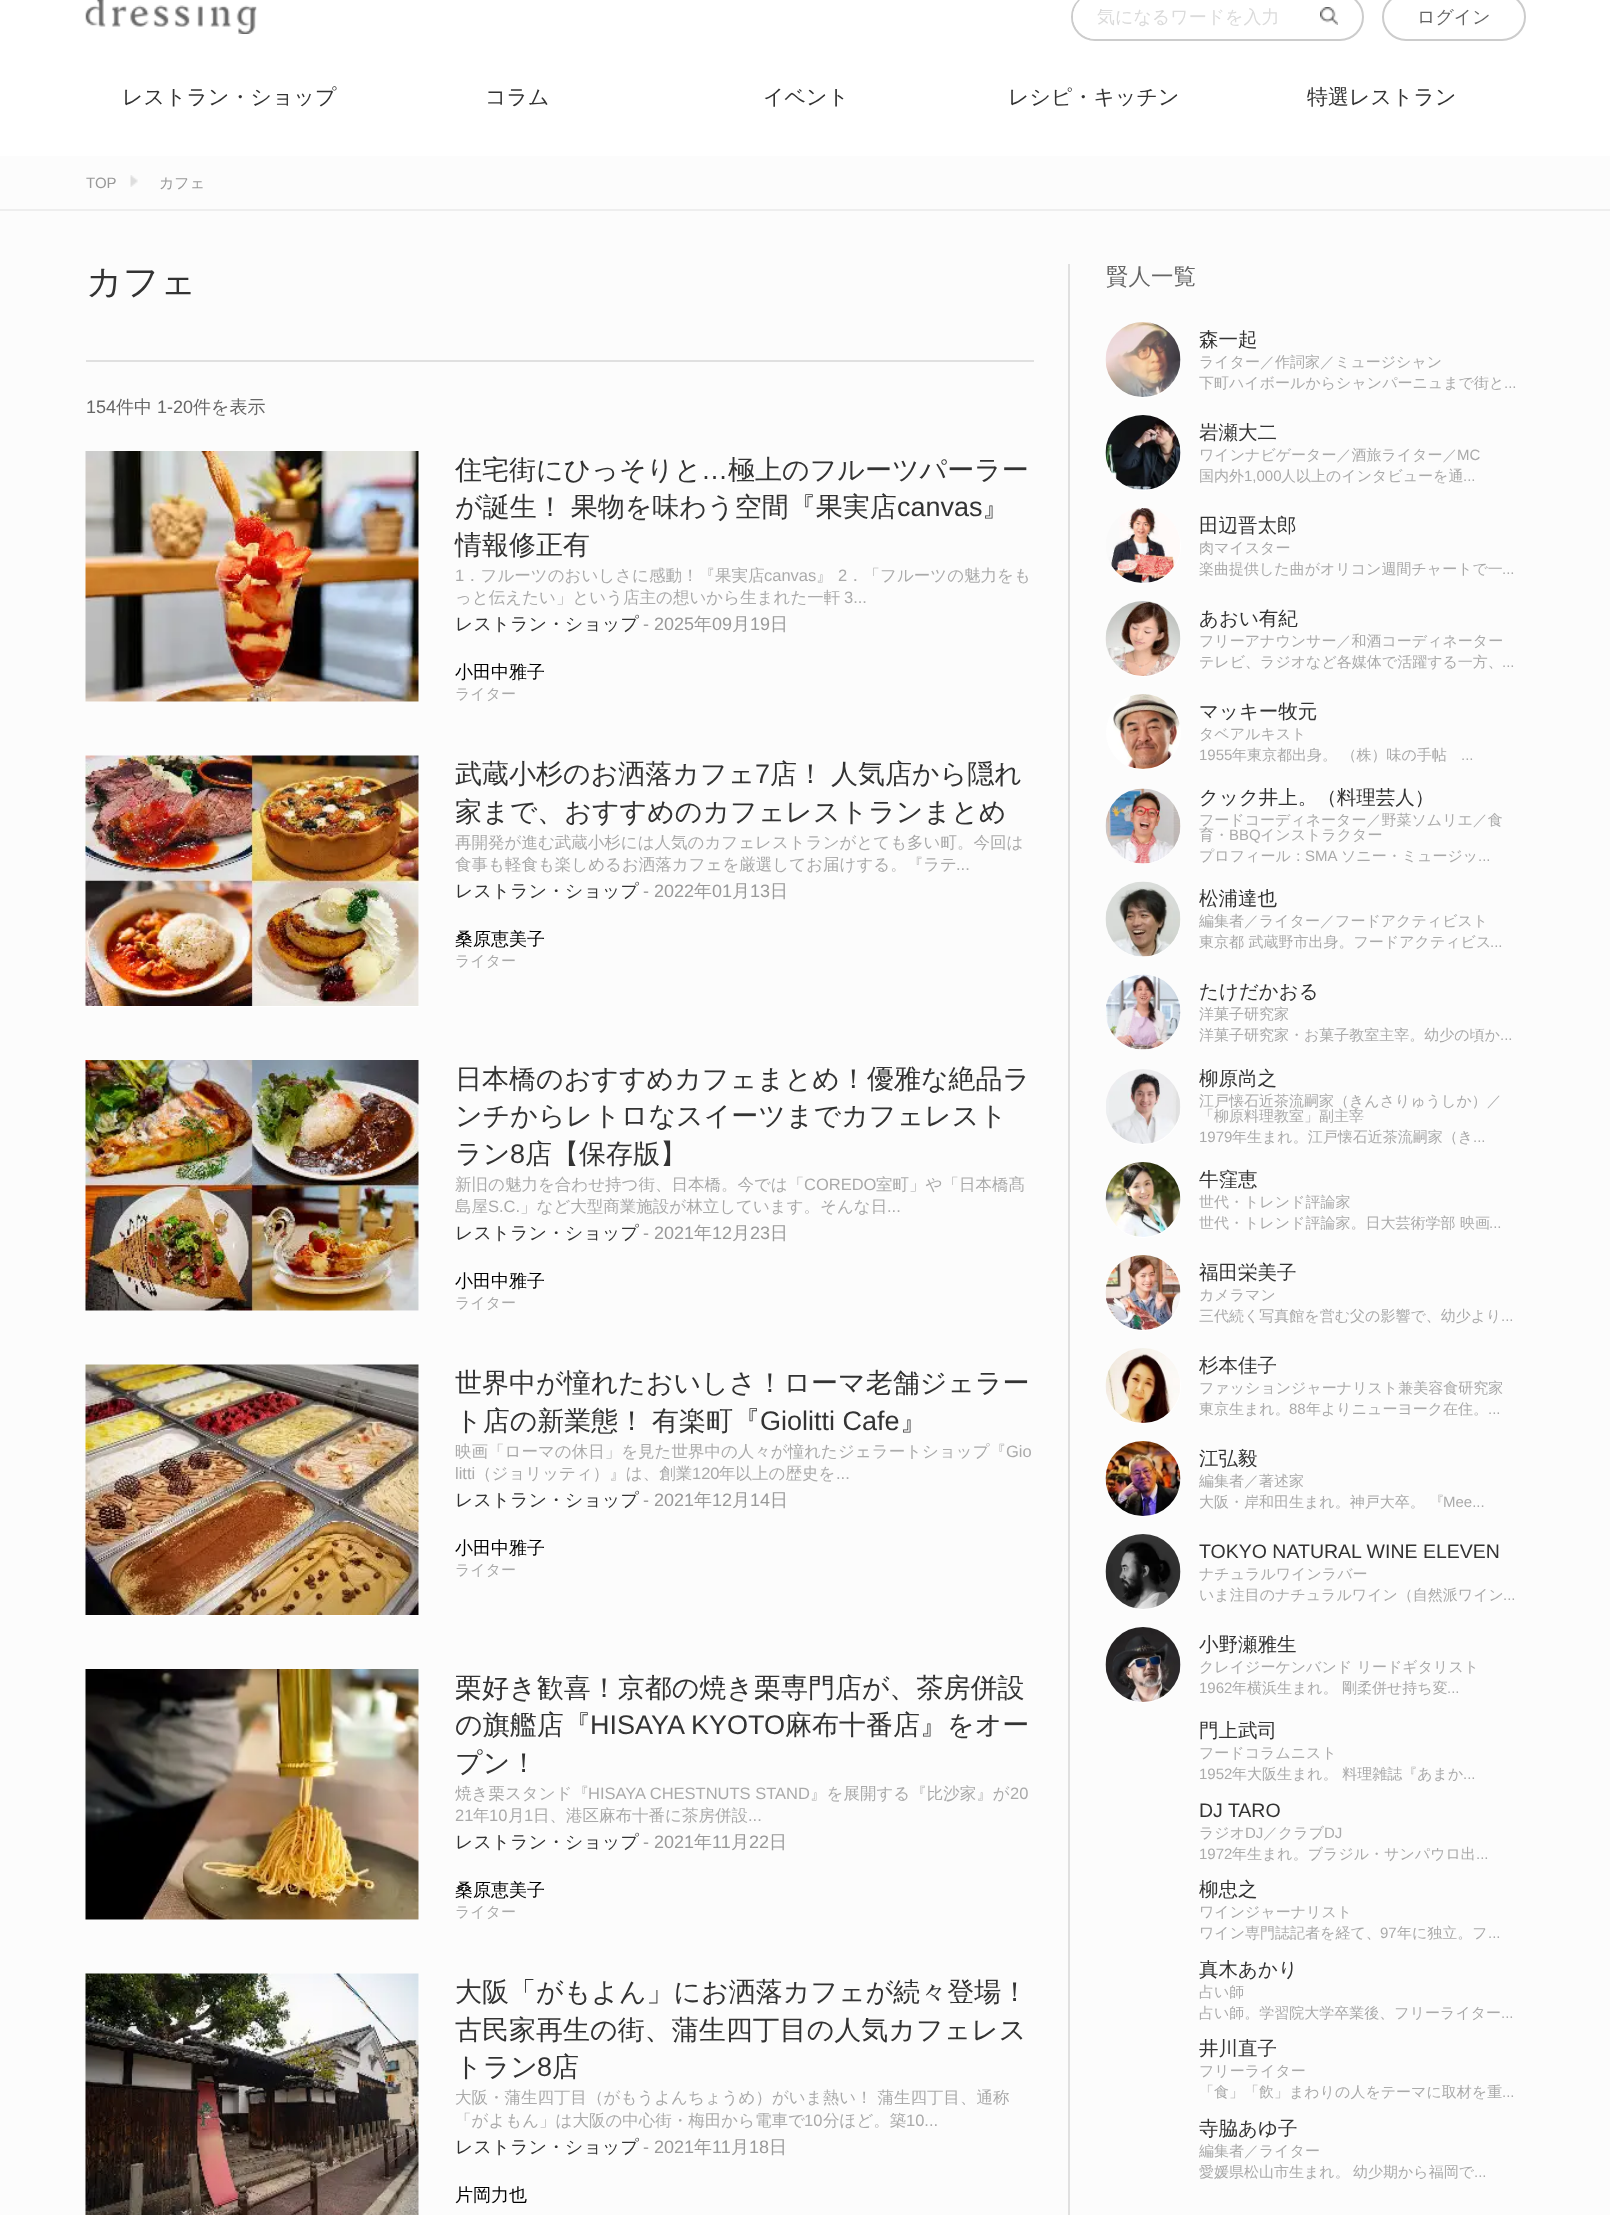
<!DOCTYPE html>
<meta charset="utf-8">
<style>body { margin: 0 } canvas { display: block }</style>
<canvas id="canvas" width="1610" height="2215"></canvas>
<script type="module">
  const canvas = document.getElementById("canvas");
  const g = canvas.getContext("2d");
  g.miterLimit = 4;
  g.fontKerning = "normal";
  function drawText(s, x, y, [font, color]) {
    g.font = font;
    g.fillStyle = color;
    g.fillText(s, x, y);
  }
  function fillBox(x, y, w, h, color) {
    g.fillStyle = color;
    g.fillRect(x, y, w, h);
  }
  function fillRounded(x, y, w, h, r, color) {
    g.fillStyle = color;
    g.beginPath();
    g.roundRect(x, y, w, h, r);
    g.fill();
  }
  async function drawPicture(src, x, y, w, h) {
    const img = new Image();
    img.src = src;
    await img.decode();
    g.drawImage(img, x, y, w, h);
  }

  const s1 = ["500 18px WenQuanYi Zen Hei", "#DBDBDB"];
  const s2 = ["500 18px WenQuanYi Zen Hei", "#666666"];
  const s3 = ["500 21px WenQuanYi Zen Hei", "#333333"];
  const s4 = ["15px Liberation Sans", "#999999"];
  const s5 = ["500 15px WenQuanYi Zen Hei", "#999999"];
  const s6 = ["500 36px WenQuanYi Zen Hei", "#333333"];
  const s7 = ["18px Liberation Sans", "#666666"];
  const s8 = ["500 27px WenQuanYi Zen Hei", "#333333"];
  const s9 = ["27px Liberation Sans", "#333333"];
  const s10 = ["16.5px Liberation Sans", "#AAAAAA"];
  const s11 = ["500 16.5px WenQuanYi Zen Hei", "#AAAAAA"];
  const s12 = ["500 18px WenQuanYi Zen Hei", "#333333"];
  const s13 = ["18px Liberation Sans", "#999999"];
  const s14 = ["500 18px WenQuanYi Zen Hei", "#999999"];
  const s15 = ["500 18px WenQuanYi Zen Hei", "#000000"];
  const s16 = ["500 15px WenQuanYi Zen Hei", "#AAAAAA"];
  const s17 = ["500 22.5px WenQuanYi Zen Hei", "#666666"];
  const s18 = ["500 19.5px WenQuanYi Zen Hei", "#333333"];
  const s19 = ["15px Liberation Sans", "#AAAAAA"];
  const s20 = ["19.5px Liberation Sans", "#333333"];

  fillBox(0, 0, 1610, 2215, "#FCFCFC");
  fillBox(0, 0, 1610, 156, "#FFFFFF");
  await drawPicture("pic1.png", 85, 0, 172, 34);
  g.beginPath();
  g.roundRect(1072, -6, 291, 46, 23);
  g.strokeStyle = "#CCCCCC";
  g.lineWidth = 2;
  g.stroke();
  fillRounded(1073, -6, 229, 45, 22.5, "#FFFFFF");
  drawText("気になるワードを入力", 1097, 23, s1);
  await drawPicture("pic2.png", 1320, 7, 18, 18);
  g.beginPath();
  g.roundRect(1383, -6, 142, 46, 23);
  g.stroke();
  drawText("ログイン", 1417, 23, s2);
  drawText("レストラン・ショップ", 122, 104, s3);
  drawText("コラム", 485, 104, s3);
  drawText("イベント", 763, 104, s3);
  drawText("レシピ・キッチン", 1008, 104, s3);
  drawText("特選レストラン", 1307, 104, s3);
  fillBox(0, 209, 1610, 2, "#EEEEEE");
  drawText("TOP", 86, 188, s4);
  await drawPicture("pic3.png", 130, 175, 8, 12);
  drawText("カフェ", 159, 188, s5);
  fillBox(86, 360, 948, 2, "#E0E0E0");
  drawText("カフェ", 86, 294, s6);
  drawText("154", 86, 413, s7);
  drawText("件中", 116, 413, s2);
  drawText("1-20", 157, 413, s7);
  drawText("件を表示", 193, 413, s2);
  fillBox(86, 452, 333, 250, "#FFFFFF");
  await drawPicture("pic4.png", 85, 451, 334, 251);
  drawText("住宅街にひっそりと", 455, 479, s8);
  drawText("…", 701, 479, s9);
  drawText("極上のフルーツパーラー", 728, 479, s8);
  g.wordSpacing = "-1px";
  drawText("が誕生！ 果物を味わう空間『果実店", 455, 516, s8);
  g.wordSpacing = "0px";
  drawText("canvas", 897, 516, s9);
  drawText("』", 982, 516, s8);
  drawText("情報修正有", 455, 554, s8);
  drawText("1", 455, 581, s10);
  drawText("．フルーツのおいしさに感動！『果実店", 464, 581, s11);
  drawText("canvas", 764, 581, s10);
  drawText("』", 816, 581, s11);
  drawText("2", 838, 581, s10);
  drawText("．「フルーツの魅力をも", 847, 581, s11);
  drawText("っと伝えたい」という店主の想いから生まれた一軒", 455, 603, s11);
  drawText("3...", 844, 603, s10);
  drawText("レストラン・ショップ", 455, 630, s12);
  drawText("- 2025", 643, 630, s13);
  drawText("年", 694, 630, s14);
  drawText("09", 712, 630, s13);
  drawText("月", 732, 630, s14);
  drawText("19", 750, 630, s13);
  drawText("日", 770, 630, s14);
  drawText("小田中雅子", 455, 678, s15);
  drawText("ライター", 455, 699, s16);
  fillBox(86, 756, 333, 251, "#FFFFFF");
  await drawPicture("pic5.png", 85, 755, 334, 251);
  drawText("武蔵小杉のお洒落カフェ", 455, 783, s8);
  drawText("7", 755, 783, s9);
  g.wordSpacing = "-1px";
  drawText("店！ 人気店から隠れ", 770, 783, s8);
  g.wordSpacing = "0px";
  drawText("家まで、おすすめのカフェレストランまとめ", 455, 821, s8);
  drawText("再開発が進む武蔵小杉には人気のカフェレストランがとても多い町。今回は", 455, 848, s11);
  drawText("食事も軽食も楽しめるお洒落カフェを厳選してお届けする。『ラテ", 455, 870, s11);
  drawText("...", 956, 870, s10);
  drawText("レストラン・ショップ", 455, 897, s12);
  drawText("- 2022", 643, 897, s13);
  drawText("年", 694, 897, s14);
  drawText("01", 712, 897, s13);
  drawText("月", 732, 897, s14);
  drawText("13", 750, 897, s13);
  drawText("日", 770, 897, s14);
  drawText("桑原恵美子", 455, 945, s15);
  drawText("ライター", 455, 966, s16);
  fillBox(86, 1061, 333, 250, "#FFFFFF");
  await drawPicture("pic6.png", 85, 1060, 334, 251);
  drawText("日本橋のおすすめカフェまとめ！優雅な絶品ラ", 455, 1088, s8);
  drawText("ンチからレトロなスイーツまでカフェレスト", 455, 1125, s8);
  drawText("ラン", 455, 1163, s8);
  drawText("8", 510, 1163, s9);
  drawText("店【保存版】", 525, 1163, s8);
  drawText("新旧の魅力を合わせ持つ街、日本橋。今では「", 455, 1190, s11);
  drawText("COREDO", 804, 1190, s10);
  drawText("室町」や「日本橋髙", 876, 1190, s11);
  drawText("島屋", 455, 1212, s11);
  drawText("S.C.", 488, 1212, s10);
  drawText("」など大型商業施設が林立しています。そんな日", 520, 1212, s11);
  drawText("...", 887, 1212, s10);
  drawText("レストラン・ショップ", 455, 1239, s12);
  drawText("- 2021", 643, 1239, s13);
  drawText("年", 694, 1239, s14);
  drawText("12", 712, 1239, s13);
  drawText("月", 732, 1239, s14);
  drawText("23", 750, 1239, s13);
  drawText("日", 770, 1239, s14);
  drawText("小田中雅子", 455, 1287, s15);
  drawText("ライター", 455, 1308, s16);
  fillBox(86, 1365, 333, 251, "#FFFFFF");
  await drawPicture("pic7.png", 85, 1364, 334, 251);
  drawText("世界中が憧れたおいしさ！ローマ老舗ジェラー", 455, 1392, s8);
  drawText("ト店の新業態！", 455, 1430, s8);
  drawText("有楽町『", 652, 1430, s8);
  drawText("Giolitti Cafe", 760, 1430, s9);
  drawText("』", 900, 1430, s8);
  drawText("映画「ローマの休日」を見た世界中の人々が憧れたジェラートショップ『", 455, 1457, s11);
  drawText("Gio", 1006, 1457, s10);
  drawText("litti", 455, 1479, s10);
  drawText("（ジョリッティ）』は、創業", 475, 1479, s11);
  drawText("120", 692, 1479, s10);
  drawText("年以上の歴史を", 719, 1479, s11);
  drawText("...", 836, 1479, s10);
  drawText("レストラン・ショップ", 455, 1506, s12);
  drawText("- 2021", 643, 1506, s13);
  drawText("年", 694, 1506, s14);
  drawText("12", 712, 1506, s13);
  drawText("月", 732, 1506, s14);
  drawText("14", 750, 1506, s13);
  drawText("日", 770, 1506, s14);
  drawText("小田中雅子", 455, 1554, s15);
  drawText("ライター", 455, 1575, s16);
  fillBox(86, 1670, 333, 250, "#FFFFFF");
  await drawPicture("pic8.png", 85, 1669, 334, 251);
  drawText("栗好き歓喜！京都の焼き栗専門店が、茶房併設", 455, 1697, s8);
  drawText("の旗艦店『", 455, 1734, s8);
  drawText("HISAYA KYOTO", 590, 1734, s9);
  drawText("麻布十番店』をオー", 785, 1734, s8);
  drawText("プン！", 455, 1772, s8);
  drawText("焼き栗スタンド『", 455, 1799, s11);
  drawText("HISAYA CHESTNUTS STAND", 588, 1799, s10);
  drawText("』を展開する『比沙家』が", 810, 1799, s11);
  drawText("20", 1010, 1799, s10);
  drawText("21", 455, 1821, s10);
  drawText("年", 473, 1821, s11);
  drawText("10", 489, 1821, s10);
  drawText("月", 508, 1821, s11);
  drawText("1", 524, 1821, s10);
  drawText("日、港区麻布十番に茶房併設", 533, 1821, s11);
  drawText("...", 748, 1821, s10);
  drawText("レストラン・ショップ", 455, 1848, s12);
  drawText("- 2021", 643, 1848, s13);
  drawText("年", 694, 1848, s14);
  drawText("11", 712, 1848, s13);
  drawText("月", 731, 1848, s14);
  drawText("22", 749, 1848, s13);
  drawText("日", 769, 1848, s14);
  drawText("桑原恵美子", 455, 1896, s15);
  drawText("ライター", 455, 1917, s16);
  fillBox(418, 1974, 1, 241, "#FFFFFF");
  await drawPicture("pic9.png", 85, 1973, 334, 242);
  drawText("大阪「がもよん」にお洒落カフェが続々登場！", 455, 2001, s8);
  drawText("古民家再生の街、蒲生四丁目の人気カフェレス", 455, 2039, s8);
  drawText("トラン", 455, 2076, s8);
  drawText("8", 537, 2076, s9);
  drawText("店", 552, 2076, s8);
  drawText("大阪・蒲生四丁目（がもうよんちょうめ）がいま熱い！ 蒲生四丁目、通称", 455, 2103, s11);
  drawText("「がよもん」は大阪の中心街・梅田から電車で", 455, 2126, s11);
  drawText("10", 804, 2126, s10);
  drawText("分ほど。築", 823, 2126, s11);
  drawText("10...", 906, 2126, s10);
  drawText("レストラン・ショップ", 455, 2153, s12);
  drawText("- 2021", 643, 2153, s13);
  drawText("年", 694, 2153, s14);
  drawText("11", 712, 2153, s13);
  drawText("月", 731, 2153, s14);
  drawText("18", 749, 2153, s13);
  drawText("日", 769, 2153, s14);
  drawText("片岡力也", 455, 2201, s15);
  fillBox(1068, 264, 2, 1951, "#E0E0E0");
  drawText("賢人一覧", 1106, 284, s17);
  g.fillStyle = "#FFFFFF";
  g.beginPath();
  g.arc(1143.5, 360.5, 37.5, 0, Math.PI * 2);
  g.fill();
  await drawPicture("pic10.png", 1105, 322, 76, 75);
  drawText("森一起", 1199, 346, s18);
  drawText("ライター／作詞家／ミュージシャン", 1199, 367, s16);
  drawText("下町ハイボールからシャンパーニュまで街と", 1199, 388, s16);
  drawText("...", 1504, 388, s19);
  g.fillStyle = "#FFFFFF";
  g.beginPath();
  g.arc(1143.5, 453.5, 37.5, 0, Math.PI * 2);
  g.fill();
  await drawPicture("pic11.png", 1105, 415, 76, 75);
  drawText("岩瀬大二", 1199, 439, s18);
  drawText("ワインナビゲーター／酒旅ライター／", 1199, 460, s16);
  drawText("MC", 1457, 460, s19);
  drawText("国内外", 1199, 481, s16);
  drawText("1,000", 1244, 481, s19);
  drawText("人以上のインタビューを通", 1281, 481, s16);
  drawText("...", 1463, 481, s19);
  g.fillStyle = "#FFFFFF";
  g.beginPath();
  g.arc(1143.5, 546.5, 37.5, 0, Math.PI * 2);
  g.fill();
  await drawPicture("pic12.png", 1106, 508, 74, 75);
  drawText("田辺晋太郎", 1199, 532, s18);
  drawText("肉マイスター", 1199, 553, s16);
  drawText("楽曲提供した曲がオリコン週間チャートで一", 1199, 574, s16);
  drawText("...", 1502, 574, s19);
  g.fillStyle = "#FFFFFF";
  g.beginPath();
  g.arc(1143.5, 639.5, 37.5, 0, Math.PI * 2);
  g.fill();
  await drawPicture("pic13.png", 1105, 601, 76, 75);
  drawText("あおい有紀", 1199, 625, s18);
  drawText("フリーアナウンサー／和酒コーディネーター", 1199, 646, s16);
  drawText("テレビ、ラジオなど各媒体で活躍する一方、", 1199, 667, s16);
  drawText("...", 1502, 667, s19);
  g.fillStyle = "#FFFFFF";
  g.beginPath();
  g.arc(1143.5, 732.5, 37.5, 0, Math.PI * 2);
  g.fill();
  await drawPicture("pic14.png", 1113, 694, 67, 75);
  drawText("マッキー牧元", 1199, 718, s18);
  drawText("タベアルキスト", 1199, 739, s16);
  drawText("1955", 1199, 760, s19);
  drawText("年東京都出身。 （株）味の手帖", 1232, 760, s16);
  drawText("...", 1461, 760, s19);
  g.fillStyle = "#FFFFFF";
  g.beginPath();
  g.arc(1143.5, 826.5, 37.5, 0, Math.PI * 2);
  g.fill();
  await drawPicture("pic15.png", 1105, 788, 76, 76);
  drawText("クック井上。（料理芸人）", 1199, 804, s18);
  drawText("フードコーディネーター／野菜ソムリエ／食", 1199, 825, s16);
  drawText("育・", 1199, 840, s16);
  drawText("BBQ", 1229, 840, s19);
  drawText("インストラクター", 1260, 840, s16);
  drawText("プロフィール：", 1199, 861, s16);
  drawText("SMA", 1305, 861, s19);
  drawText("ソニー・ミュージッ", 1341, 861, s16);
  drawText("...", 1478, 861, s19);
  g.fillStyle = "#FFFFFF";
  g.beginPath();
  g.arc(1143.5, 919.5, 37.5, 0, Math.PI * 2);
  g.fill();
  await drawPicture("pic16.png", 1105, 881, 76, 76);
  drawText("松浦達也", 1199, 905, s18);
  drawText("編集者／ライター／フードアクティビスト", 1199, 926, s16);
  drawText("東京都 武蔵野市出身。フードアクティビス", 1199, 947, s16);
  drawText("...", 1490, 947, s19);
  g.fillStyle = "#FFFFFF";
  g.beginPath();
  g.arc(1143.5, 1012.5, 37.5, 0, Math.PI * 2);
  g.fill();
  await drawPicture("pic17.png", 1106, 974, 75, 76);
  drawText("たけだかおる", 1199, 998, s18);
  drawText("洋菓子研究家", 1199, 1019, s16);
  drawText("洋菓子研究家・お菓子教室主宰。幼少の頃か", 1199, 1040, s16);
  drawText("...", 1500, 1040, s19);
  g.fillStyle = "#FFFFFF";
  g.beginPath();
  g.arc(1143.5, 1107.5, 37.5, 0, Math.PI * 2);
  g.fill();
  await drawPicture("pic18.png", 1106, 1069, 75, 75);
  drawText("柳原尚之", 1199, 1085, s18);
  drawText("江戸懐石近茶流嗣家（きんさりゅうしか）／", 1199, 1106, s16);
  drawText("「柳原料理教室」副主宰", 1199, 1121, s16);
  drawText("1979", 1199, 1142, s19);
  drawText("年生まれ。江戸懐石近茶流嗣家（き", 1232, 1142, s16);
  drawText("...", 1473, 1142, s19);
  g.fillStyle = "#FFFFFF";
  g.beginPath();
  g.arc(1143.5, 1200.5, 37.5, 0, Math.PI * 2);
  g.fill();
  await drawPicture("pic19.png", 1105, 1162, 76, 75);
  drawText("牛窪恵", 1199, 1186, s18);
  drawText("世代・トレンド評論家", 1199, 1207, s16);
  drawText("世代・トレンド評論家。日大芸術学部 映画", 1199, 1228, s16);
  drawText("...", 1489, 1228, s19);
  g.fillStyle = "#FFFFFF";
  g.beginPath();
  g.arc(1143.5, 1293.5, 37.5, 0, Math.PI * 2);
  g.fill();
  await drawPicture("pic20.png", 1105, 1255, 76, 75);
  drawText("福田栄美子", 1199, 1279, s18);
  drawText("カメラマン", 1199, 1300, s16);
  drawText("三代続く写真館を営む父の影響で、幼少より", 1199, 1321, s16);
  drawText("...", 1501, 1321, s19);
  g.fillStyle = "#FFFFFF";
  g.beginPath();
  g.arc(1143.5, 1386.5, 37.5, 0, Math.PI * 2);
  g.fill();
  await drawPicture("pic21.png", 1105, 1348, 75, 75);
  drawText("杉本佳子", 1199, 1372, s18);
  drawText("ファッションジャーナリスト兼美容食研究家", 1199, 1393, s16);
  drawText("東京生まれ。", 1199, 1414, s16);
  drawText("88", 1289, 1414, s19);
  drawText("年よりニューヨーク在住。", 1306, 1414, s16);
  drawText("...", 1488, 1414, s19);
  g.fillStyle = "#FFFFFF";
  g.beginPath();
  g.arc(1143.5, 1479.5, 37.5, 0, Math.PI * 2);
  g.fill();
  await drawPicture("pic22.png", 1105, 1441, 76, 75);
  drawText("江弘毅", 1199, 1465, s18);
  drawText("編集者／著述家", 1199, 1486, s16);
  drawText("大阪・岸和田生まれ。神戸大卒。 『", 1199, 1507, s16);
  drawText("Mee...", 1443, 1507, s19);
  g.fillStyle = "#FFFFFF";
  g.beginPath();
  g.arc(1143.5, 1572.5, 37.5, 0, Math.PI * 2);
  g.fill();
  await drawPicture("pic23.png", 1105, 1534, 76, 75);
  drawText("TOKYO NATURAL WINE ELEVEN", 1199, 1558, s20);
  drawText("ナチュラルワインラバー", 1199, 1579, s16);
  drawText("いま注目のナチュラルワイン（自然派ワイン", 1199, 1600, s16);
  drawText("...", 1503, 1600, s19);
  g.fillStyle = "#FFFFFF";
  g.beginPath();
  g.arc(1143.5, 1665.5, 37.5, 0, Math.PI * 2);
  g.fill();
  await drawPicture("pic24.png", 1105, 1627, 76, 75);
  drawText("小野瀬雅生", 1199, 1651, s18);
  drawText("クレイジーケンバンド リードギタリスト", 1199, 1672, s16);
  drawText("1962", 1199, 1693, s19);
  drawText("年横浜生まれ。", 1232, 1693, s16);
  drawText("剛柔併せ持ち変", 1342, 1693, s16);
  drawText("...", 1447, 1693, s19);
  drawText("門上武司", 1199, 1737, s18);
  drawText("フードコラムニスト", 1199, 1758, s16);
  drawText("1952", 1199, 1779, s19);
  drawText("年大阪生まれ。 料理雑誌『あまか", 1232, 1779, s16);
  drawText("...", 1463, 1779, s19);
  drawText("DJ TARO", 1199, 1817, s20);
  drawText("ラジオ", 1199, 1838, s16);
  drawText("DJ", 1245, 1838, s19);
  drawText("／クラブ", 1263, 1838, s16);
  drawText("DJ", 1324, 1838, s19);
  drawText("1972", 1199, 1859, s19);
  drawText("年生まれ。ブラジル・サンパウロ出", 1232, 1859, s16);
  drawText("...", 1476, 1859, s19);
  drawText("柳忠之", 1199, 1896, s18);
  drawText("ワインジャーナリスト", 1199, 1917, s16);
  drawText("ワイン専門誌記者を経て、", 1199, 1938, s16);
  drawText("97", 1380, 1938, s19);
  drawText("年に独立。フ", 1397, 1938, s16);
  drawText("...", 1488, 1938, s19);
  drawText("真木あかり", 1199, 1976, s18);
  drawText("占い師", 1199, 1997, s16);
  drawText("占い師。学習院大学卒業後、フリーライター", 1199, 2018, s16);
  drawText("...", 1501, 2018, s19);
  drawText("井川直子", 1199, 2055, s18);
  drawText("フリーライター", 1199, 2076, s16);
  drawText("「食」「飲」まわりの人をテーマに取材を重", 1199, 2097, s16);
  drawText("...", 1502, 2097, s19);
  drawText("寺脇あゆ子", 1199, 2135, s18);
  drawText("編集者／ライター", 1199, 2156, s16);
  drawText("愛媛県松山市生まれ。", 1199, 2177, s16);
  drawText("幼少期から福岡で", 1353, 2177, s16);
  drawText("...", 1474, 2177, s19);
</script>
